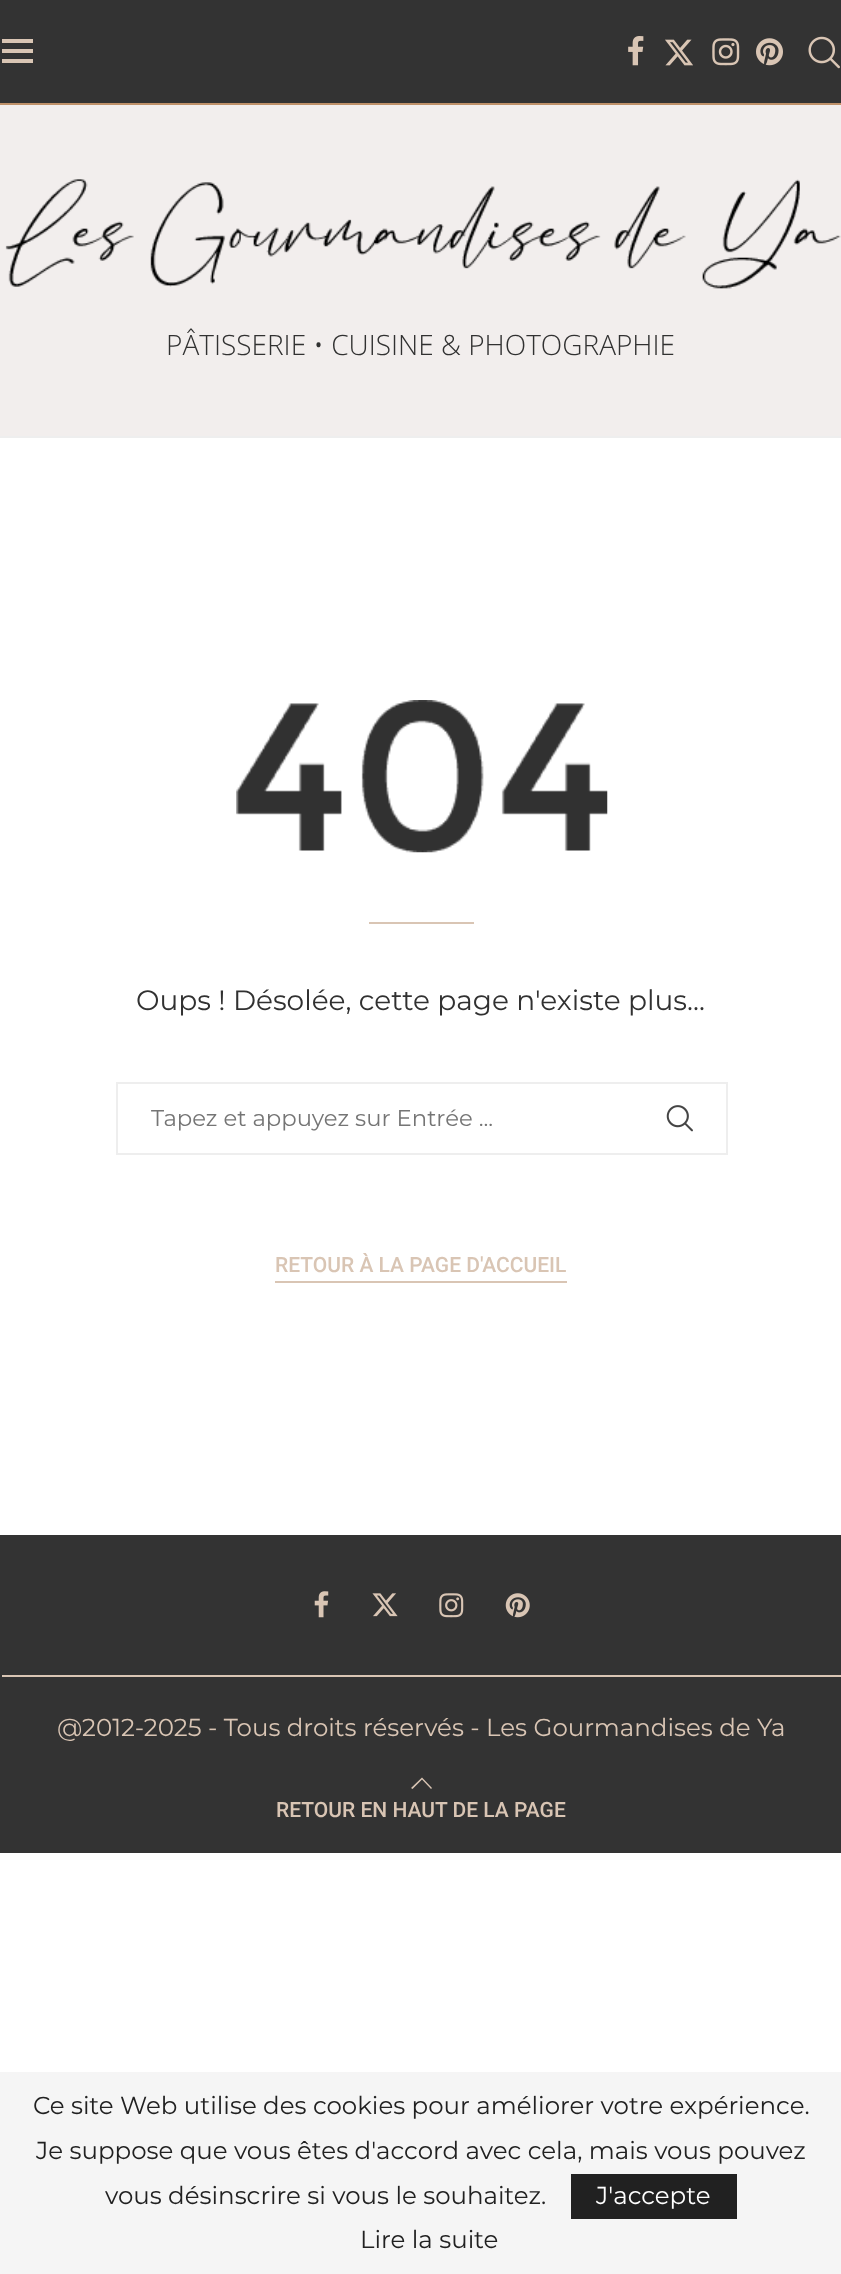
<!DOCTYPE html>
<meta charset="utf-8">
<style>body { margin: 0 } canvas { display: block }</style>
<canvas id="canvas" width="841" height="2274"></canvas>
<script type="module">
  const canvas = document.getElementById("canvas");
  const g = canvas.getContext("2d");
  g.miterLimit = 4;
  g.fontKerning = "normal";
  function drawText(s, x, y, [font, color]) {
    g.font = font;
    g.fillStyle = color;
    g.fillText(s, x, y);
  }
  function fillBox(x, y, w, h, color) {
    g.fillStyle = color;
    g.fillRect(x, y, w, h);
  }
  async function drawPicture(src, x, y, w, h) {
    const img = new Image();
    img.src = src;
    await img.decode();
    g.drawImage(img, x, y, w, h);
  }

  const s1 = ["300 28px Open Sans", "#313131"];
  const s2 = ["28px Montserrat", "#313131"];
  const s3 = ["22.75px Montserrat", "#757575"];
  const s4 = ["500 21px Roboto", "#D9C5B4"];
  const s5 = ["24.5px Montserrat", "#D9C5B4"];
  const s6 = ["24.5px Montserrat", "#212121"];
  const s7 = ["24.5px Montserrat", "#FFFFFF"];

  fillBox(0, 0, 841, 2274, "#FFFFFF");
  fillBox(0, 0, 841, 103, "#333333");
  fillBox(0, 103, 841, 2, "#BF9169");
  fillBox(2, 39, 31, 4, "#D9C5B4");
  fillBox(2, 49, 31, 4, "#D9C5B4");
  fillBox(2, 59, 31, 4, "#D9C5B4");
  await drawPicture("pic1.png", 628, 36, 16, 30);
  await drawPicture("pic2.png", 665, 39, 28, 27);
  await drawPicture("pic3.png", 712, 38, 28, 28);
  await drawPicture("pic4.png", 756, 38, 27, 28);
  await drawPicture("pic5.png", 808, 36, 32, 33);
  fillBox(0, 436, 841, 2, "#EEEEEE");
  fillBox(0, 105, 841, 331, "#F2EEED");
  await drawPicture("pic6.png", 5, 179, 836, 110);
  drawText("PÂTISSERIE • CUISINE & PHOTOGRAPHIE", 166, 355, s1);
  await drawPicture("pic7.png", 236, 700, 372, 153);
  fillBox(369, 922, 105, 2, "#D9C5B4");
  drawText("Oups ! Désolée, cette page n'existe plus...", 136, 1010, s2);
  g.strokeStyle = "#EEEEEE";
  g.lineWidth = 2;
  g.strokeRect(117, 1083, 610, 71);
  drawText("Tapez et appuyez sur Entrée ...", 151, 1126, s3);
  await drawPicture("pic8.png", 666, 1105, 27, 27);
  drawText("RETOUR À LA PAGE D'ACCUEIL", 275, 1272, s4);
  fillBox(275, 1281, 292, 2, "#D9C5B4");
  fillBox(0, 1535, 841, 318, "#333333");
  fillBox(2, 1675, 839, 2, "#D9C5B4");
  await drawPicture("pic9.png", 314, 1591, 15, 27);
  await drawPicture("pic10.png", 372, 1593, 26, 24);
  await drawPicture("pic11.png", 439, 1593, 25, 25);
  await drawPicture("pic12.png", 505, 1593, 25, 25);
  drawText("@2012-2025 - Tous droits réservés - Les Gourmandises de Ya", 57, 1736, s5);
  g.beginPath();
  g.moveTo(422, 1777.5);
  g.lineTo(411, 1788);
  g.lineTo(412.5, 1789);
  g.lineTo(422, 1779.5);
  g.lineTo(431, 1789);
  g.lineTo(432, 1788);
  g.closePath();
  g.fill();
  drawText("RETOUR EN HAUT DE LA PAGE", 276, 1817, s4);
  fillBox(0, 2072, 841, 202, "#F5F5F5");
  drawText("Ce site Web utilise des cookies pour améliorer votre expérience.", 33, 2114, s6);
  drawText("Je suppose que vous êtes d'accord avec cela, mais vous pouvez", 36, 2159, s6);
  drawText("vous désinscrire si vous le souhaitez.", 105, 2204, s6);
  fillBox(571, 2174, 166, 45, "#212121");
  drawText("J'accepte", 596, 2204, s7);
  drawText("Lire la suite", 360, 2248, s6);
</script>
